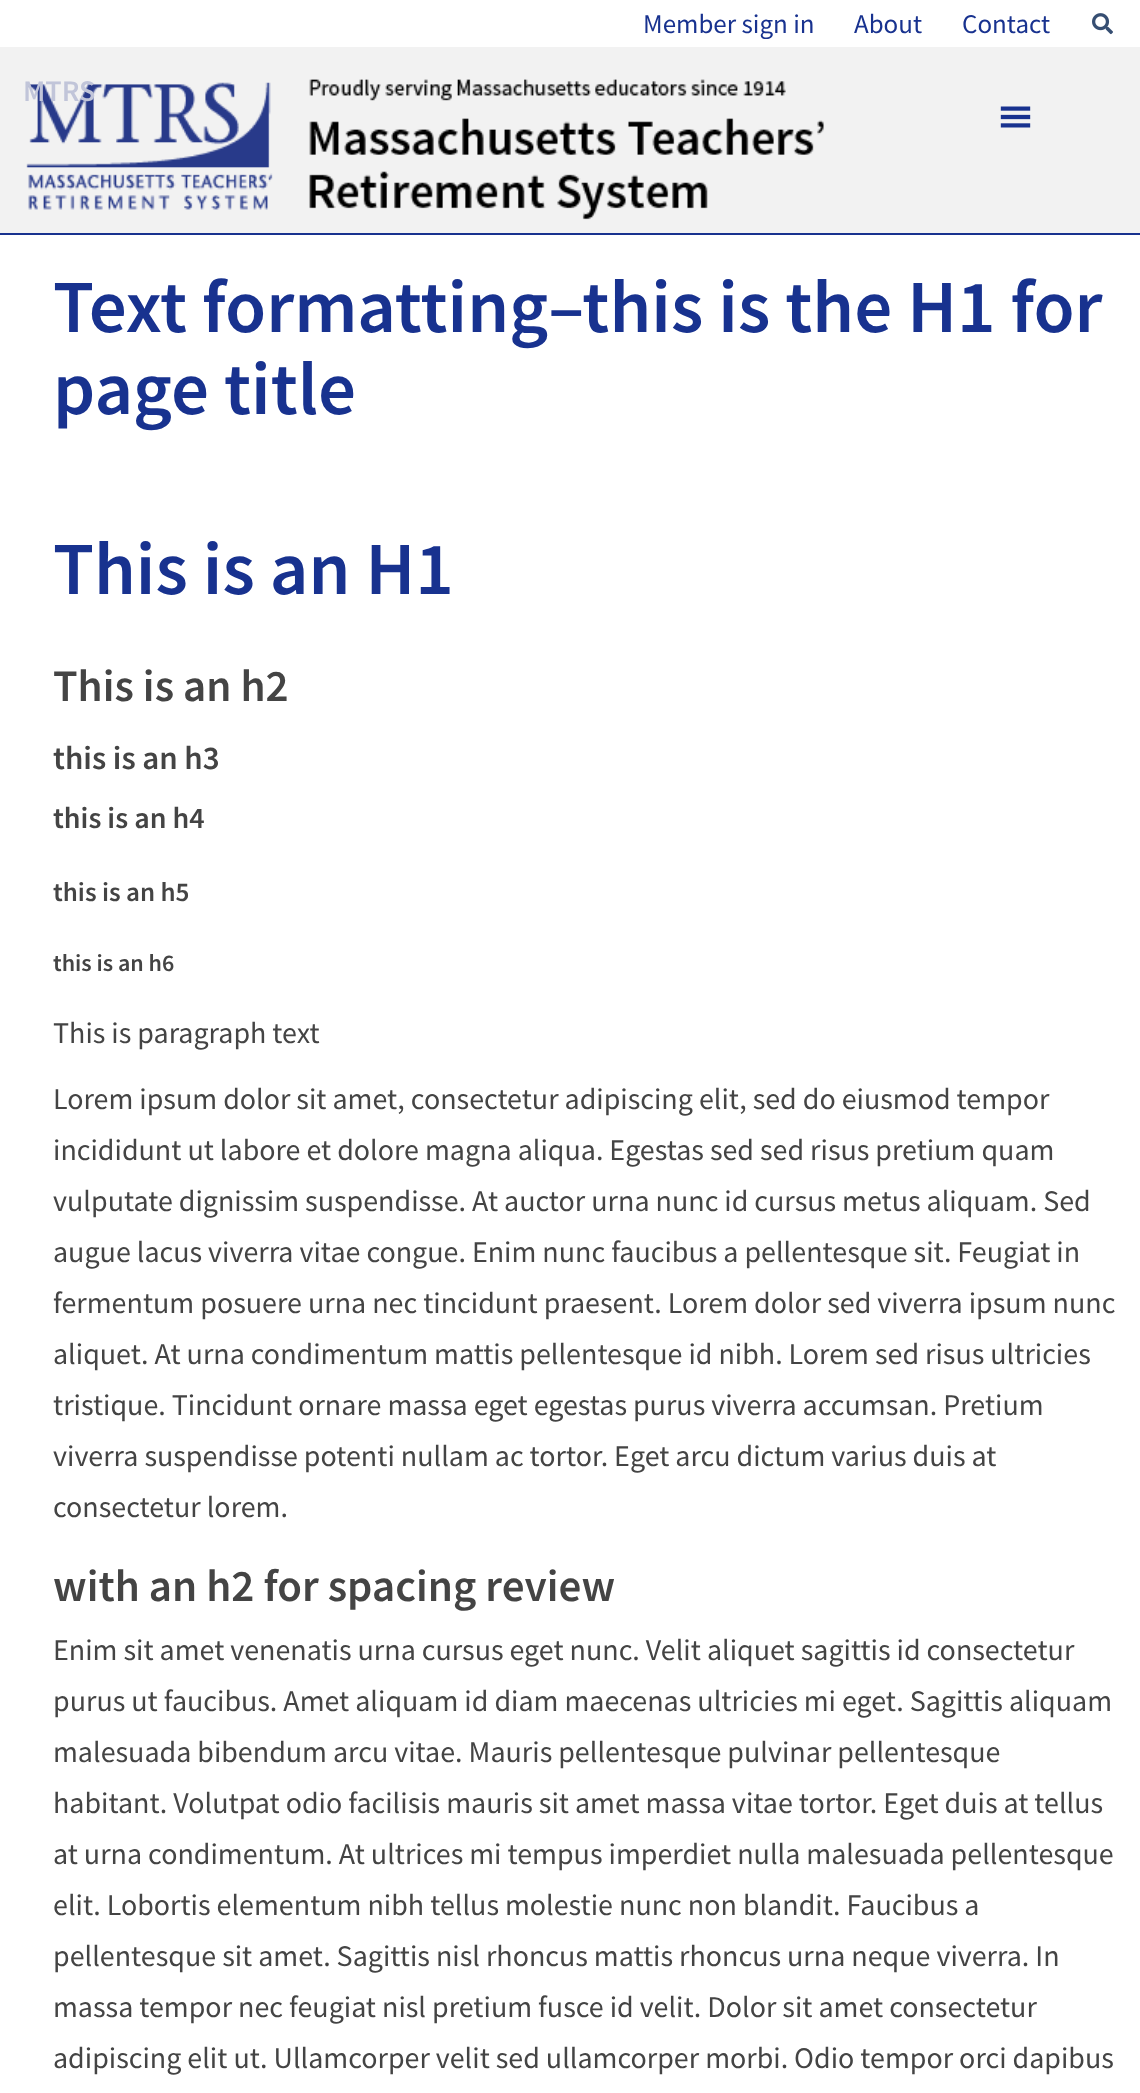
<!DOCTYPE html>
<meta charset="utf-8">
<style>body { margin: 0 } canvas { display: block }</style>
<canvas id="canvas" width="1140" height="2093"></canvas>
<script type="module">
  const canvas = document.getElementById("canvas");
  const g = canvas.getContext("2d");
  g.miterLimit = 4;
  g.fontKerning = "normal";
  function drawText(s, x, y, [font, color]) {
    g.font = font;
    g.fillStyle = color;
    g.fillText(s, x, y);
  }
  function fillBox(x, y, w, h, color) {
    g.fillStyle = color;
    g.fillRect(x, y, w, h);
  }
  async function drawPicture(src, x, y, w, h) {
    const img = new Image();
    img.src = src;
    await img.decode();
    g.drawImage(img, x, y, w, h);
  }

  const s1 = ["27px Source Sans Pro", "#18328F"];
  const s2 = ["600 30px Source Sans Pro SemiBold", "#C1C5D9"];
  const s3 = ["600 75px Source Sans Pro SemiBold", "#18328F"];
  const s4 = ["600 45px Source Sans Pro SemiBold", "#444444"];
  const s5 = ["600 33px Source Sans Pro SemiBold", "#444444"];
  const s6 = ["600 30px Source Sans Pro SemiBold", "#444444"];
  const s7 = ["600 27px Source Sans Pro SemiBold", "#444444"];
  const s8 = ["600 24px Source Sans Pro SemiBold", "#444444"];
  const s9 = ["30px Source Sans Pro", "#444444"];

  fillBox(0, 0, 1140, 2093, "#FFFFFF");
  drawText("Member sign in", 643, 33, s1);
  drawText("About", 854, 33, s1);
  drawText("Contact", 962, 33, s1);
  await drawPicture("pic1.png", 1092, 13, 21, 22);
  fillBox(0, 47, 1140, 186, "#F2F2F2");
  fillBox(0, 233, 1140, 2, "#18328F");
  await drawPicture("pic2.png", 26, 79, 798, 141);
  drawText("MTRS", 23, 101, s2);
  await drawPicture("pic3.png", 1000, 106, 31, 22);
  drawText("Text formatting–this is the H1 for", 53, 332, s3);
  drawText("page title", 53, 414, s3);
  drawText("This is an H1", 53, 594, s3);
  drawText("This is an h2", 53, 701, s4);
  drawText("this is an h3", 53, 769, s5);
  drawText("this is an h4", 53, 828, s6);
  drawText("this is an h5", 53, 901, s7);
  drawText("this is an h6", 53, 971, s8);
  drawText("This is paragraph text", 53, 1043, s9);
  drawText("Lorem ipsum dolor sit amet, consectetur adipiscing elit, sed do eiusmod tempor", 53, 1109, s9);
  drawText("incididunt ut labore et dolore magna aliqua. Egestas sed sed risus pretium quam", 53, 1160, s9);
  drawText("vulputate dignissim suspendisse. At auctor urna nunc id cursus metus aliquam. Sed", 53, 1211, s9);
  drawText("augue lacus viverra vitae congue. Enim nunc faucibus a pellentesque sit. Feugiat in", 53, 1262, s9);
  drawText("fermentum posuere urna nec tincidunt praesent. Lorem dolor sed viverra ipsum nunc", 53, 1313, s9);
  drawText("aliquet. At urna condimentum mattis pellentesque id nibh. Lorem sed risus ultricies", 53, 1364, s9);
  drawText("tristique. Tincidunt ornare massa eget egestas purus viverra accumsan. Pretium", 53, 1415, s9);
  drawText("viverra suspendisse potenti nullam ac tortor. Eget arcu dictum varius duis at", 53, 1466, s9);
  drawText("consectetur lorem.", 53, 1517, s9);
  drawText("with an h2 for spacing review", 53, 1601, s4);
  drawText("Enim sit amet venenatis urna cursus eget nunc. Velit aliquet sagittis id consectetur", 53, 1660, s9);
  drawText("purus ut faucibus. Amet aliquam id diam maecenas ultricies mi eget. Sagittis aliquam", 53, 1711, s9);
  drawText("malesuada bibendum arcu vitae. Mauris pellentesque pulvinar pellentesque", 53, 1762, s9);
  drawText("habitant. Volutpat odio facilisis mauris sit amet massa vitae tortor. Eget duis at tellus", 53, 1813, s9);
  drawText("at urna condimentum. At ultrices mi tempus imperdiet nulla malesuada pellentesque", 53, 1864, s9);
  drawText("elit. Lobortis elementum nibh tellus molestie nunc non blandit. Faucibus a", 53, 1915, s9);
  drawText("pellentesque sit amet. Sagittis nisl rhoncus mattis rhoncus urna neque viverra. In", 53, 1966, s9);
  drawText("massa tempor nec feugiat nisl pretium fusce id velit. Dolor sit amet consectetur", 53, 2017, s9);
  drawText("adipiscing elit ut. Ullamcorper velit sed ullamcorper morbi. Odio tempor orci dapibus", 53, 2068, s9);
</script>
